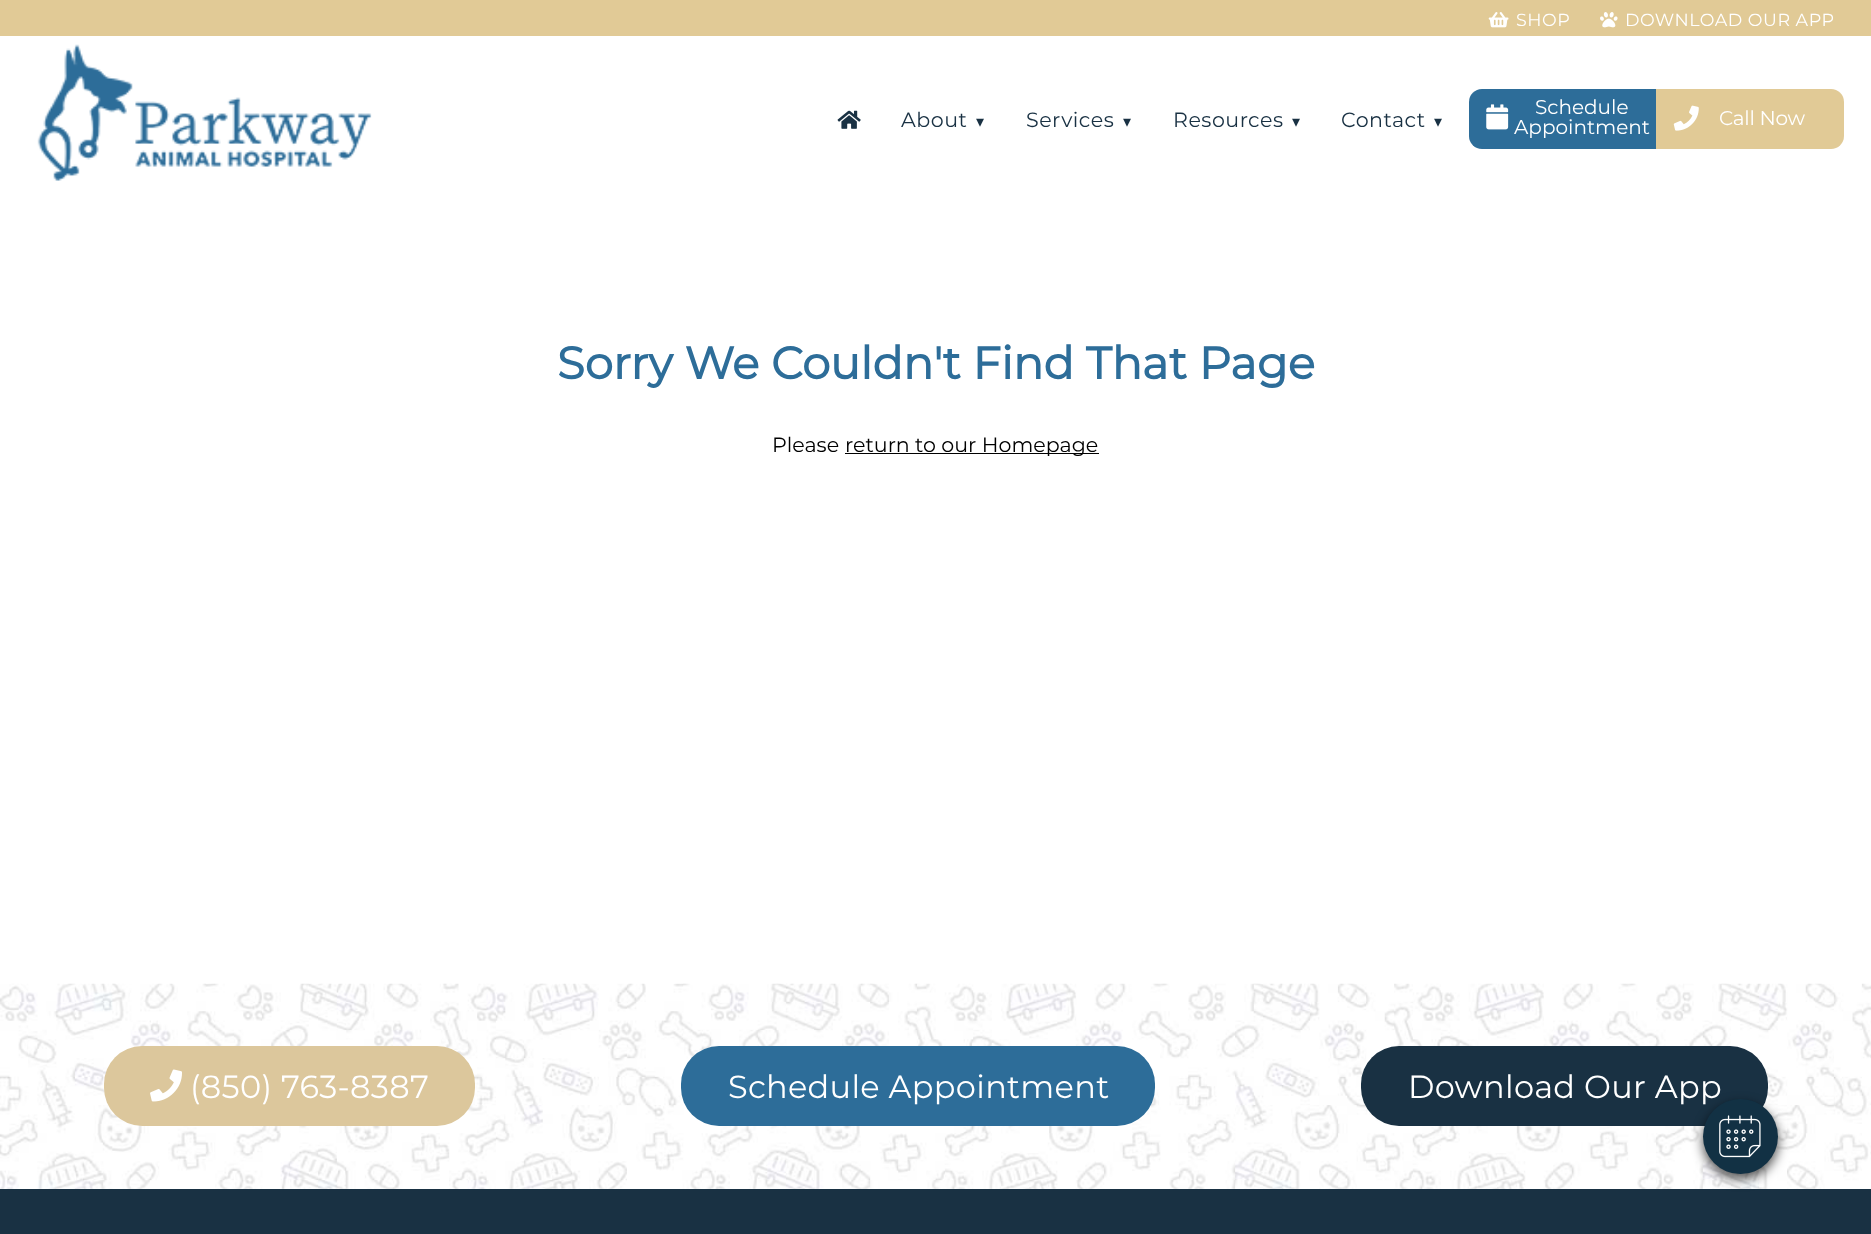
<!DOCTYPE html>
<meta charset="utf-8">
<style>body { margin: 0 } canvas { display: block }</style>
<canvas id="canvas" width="1871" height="1234"></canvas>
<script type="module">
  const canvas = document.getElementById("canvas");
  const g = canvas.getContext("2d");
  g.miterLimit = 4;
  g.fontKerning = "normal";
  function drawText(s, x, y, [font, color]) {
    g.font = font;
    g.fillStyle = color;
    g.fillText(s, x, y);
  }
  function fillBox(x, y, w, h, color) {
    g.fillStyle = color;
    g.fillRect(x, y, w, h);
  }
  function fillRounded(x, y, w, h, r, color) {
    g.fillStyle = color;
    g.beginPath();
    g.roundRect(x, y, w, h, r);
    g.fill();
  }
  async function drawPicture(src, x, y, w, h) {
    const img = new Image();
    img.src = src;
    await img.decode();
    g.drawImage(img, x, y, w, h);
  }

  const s1 = ["100 17.5px Montserrat", "#FFFFFF"];
  const s2 = ["100 20.6px Montserrat", "#193143"];
  const s3 = ["16px DejaVu Sans", "#193143"];
  const s4 = ["100 20px Montserrat", "#FFFFFF"];
  const s5 = ["bold 45px Montserrat", "#2D6D99"];
  const s6 = ["100 20.6px Montserrat", "#000000"];
  const s7 = ["100 32px Montserrat", "#FFFFFF"];

  fillBox(0, 0, 1871, 1234, "#FFFFFF");
  fillBox(0, 0, 1871, 36, "#E1CA96");
  await drawPicture("pic1.png", 1488, 12, 21, 16);
  g.letterSpacing = "0.5px";
  drawText("SHOP", 1516, 26, s1);
  await drawPicture("pic2.png", 1600, 12, 18, 16);
  drawText("DOWNLOAD OUR APP", 1625, 26, s1);
  await drawPicture("pic3.png", 37, 44, 335, 137);
  await drawPicture("pic4.png", 837, 110, 24, 19);
  drawText("About", 901, 127, s2);
  drawText("▾", 976, 127, s3);
  drawText("Services", 1026, 127, s2);
  drawText("▾", 1123, 127, s3);
  drawText("Resources", 1173, 127, s2);
  drawText("▾", 1292, 127, s3);
  drawText("Contact", 1341, 127, s2);
  drawText("▾", 1434, 127, s3);
  g.fillStyle = "#2D6D99";
  g.beginPath();
  g.roundRect(1469, 89, 187, 60, [13, 0, 0, 13]);
  g.fill();
  await drawPicture("pic5.png", 1486, 104, 23, 26);
  g.letterSpacing = "0px";
  drawText("Schedule", 1535, 114, s4);
  drawText("Appointment", 1514, 134, s4);
  g.fillStyle = "#E1CA96";
  g.beginPath();
  g.roundRect(1656, 89, 188, 60, [0, 13, 13, 0]);
  g.fill();
  await drawPicture("pic6.png", 1673, 105, 26, 26);
  g.letterSpacing = "-0.25px";
  drawText("Call Now", 1719, 125, s4);
  g.letterSpacing = "0px";
  drawText("Sorry We Couldn't Find That Page", 557, 379, s5);
  drawText("Please", 772, 452, s6);
  fillBox(845, 453, 254, 1, "#000000");
  drawText("return to our Homepage", 845, 452, s6);
  await drawPicture("pic7.png", 0, 983, 1871, 206);
  fillRounded(104, 1046, 371, 80, 38, "#DCC79C");
  await drawPicture("pic8.png", 150, 1069, 32, 33);
  g.letterSpacing = "0.3px";
  drawText("(850) 763-8387", 190, 1098, s7);
  fillRounded(681, 1046, 474, 80, 38, "#2D6D99");
  drawText("Schedule Appointment", 728, 1098, s7);
  fillRounded(1361, 1046, 407, 80, 38, "#193143");
  drawText("Download Our App", 1408, 1098, s7);
  fillBox(0, 1189, 1871, 45, "#193143");
  g.fillStyle = "rgba(0, 0, 0, 0.7)";
  g.filter = "blur(6px)";
  g.beginPath();
  g.roundRect(1703, 1104, 75, 75, 37.5);
  g.fill();
  g.filter = "none";
  g.fillStyle = "#123144";
  g.beginPath();
  g.arc(1740.5, 1136.5, 37.5, 0, Math.PI * 2);
  g.fill();
  await drawPicture("pic9.png", 1719, 1115, 42, 43);
</script>
